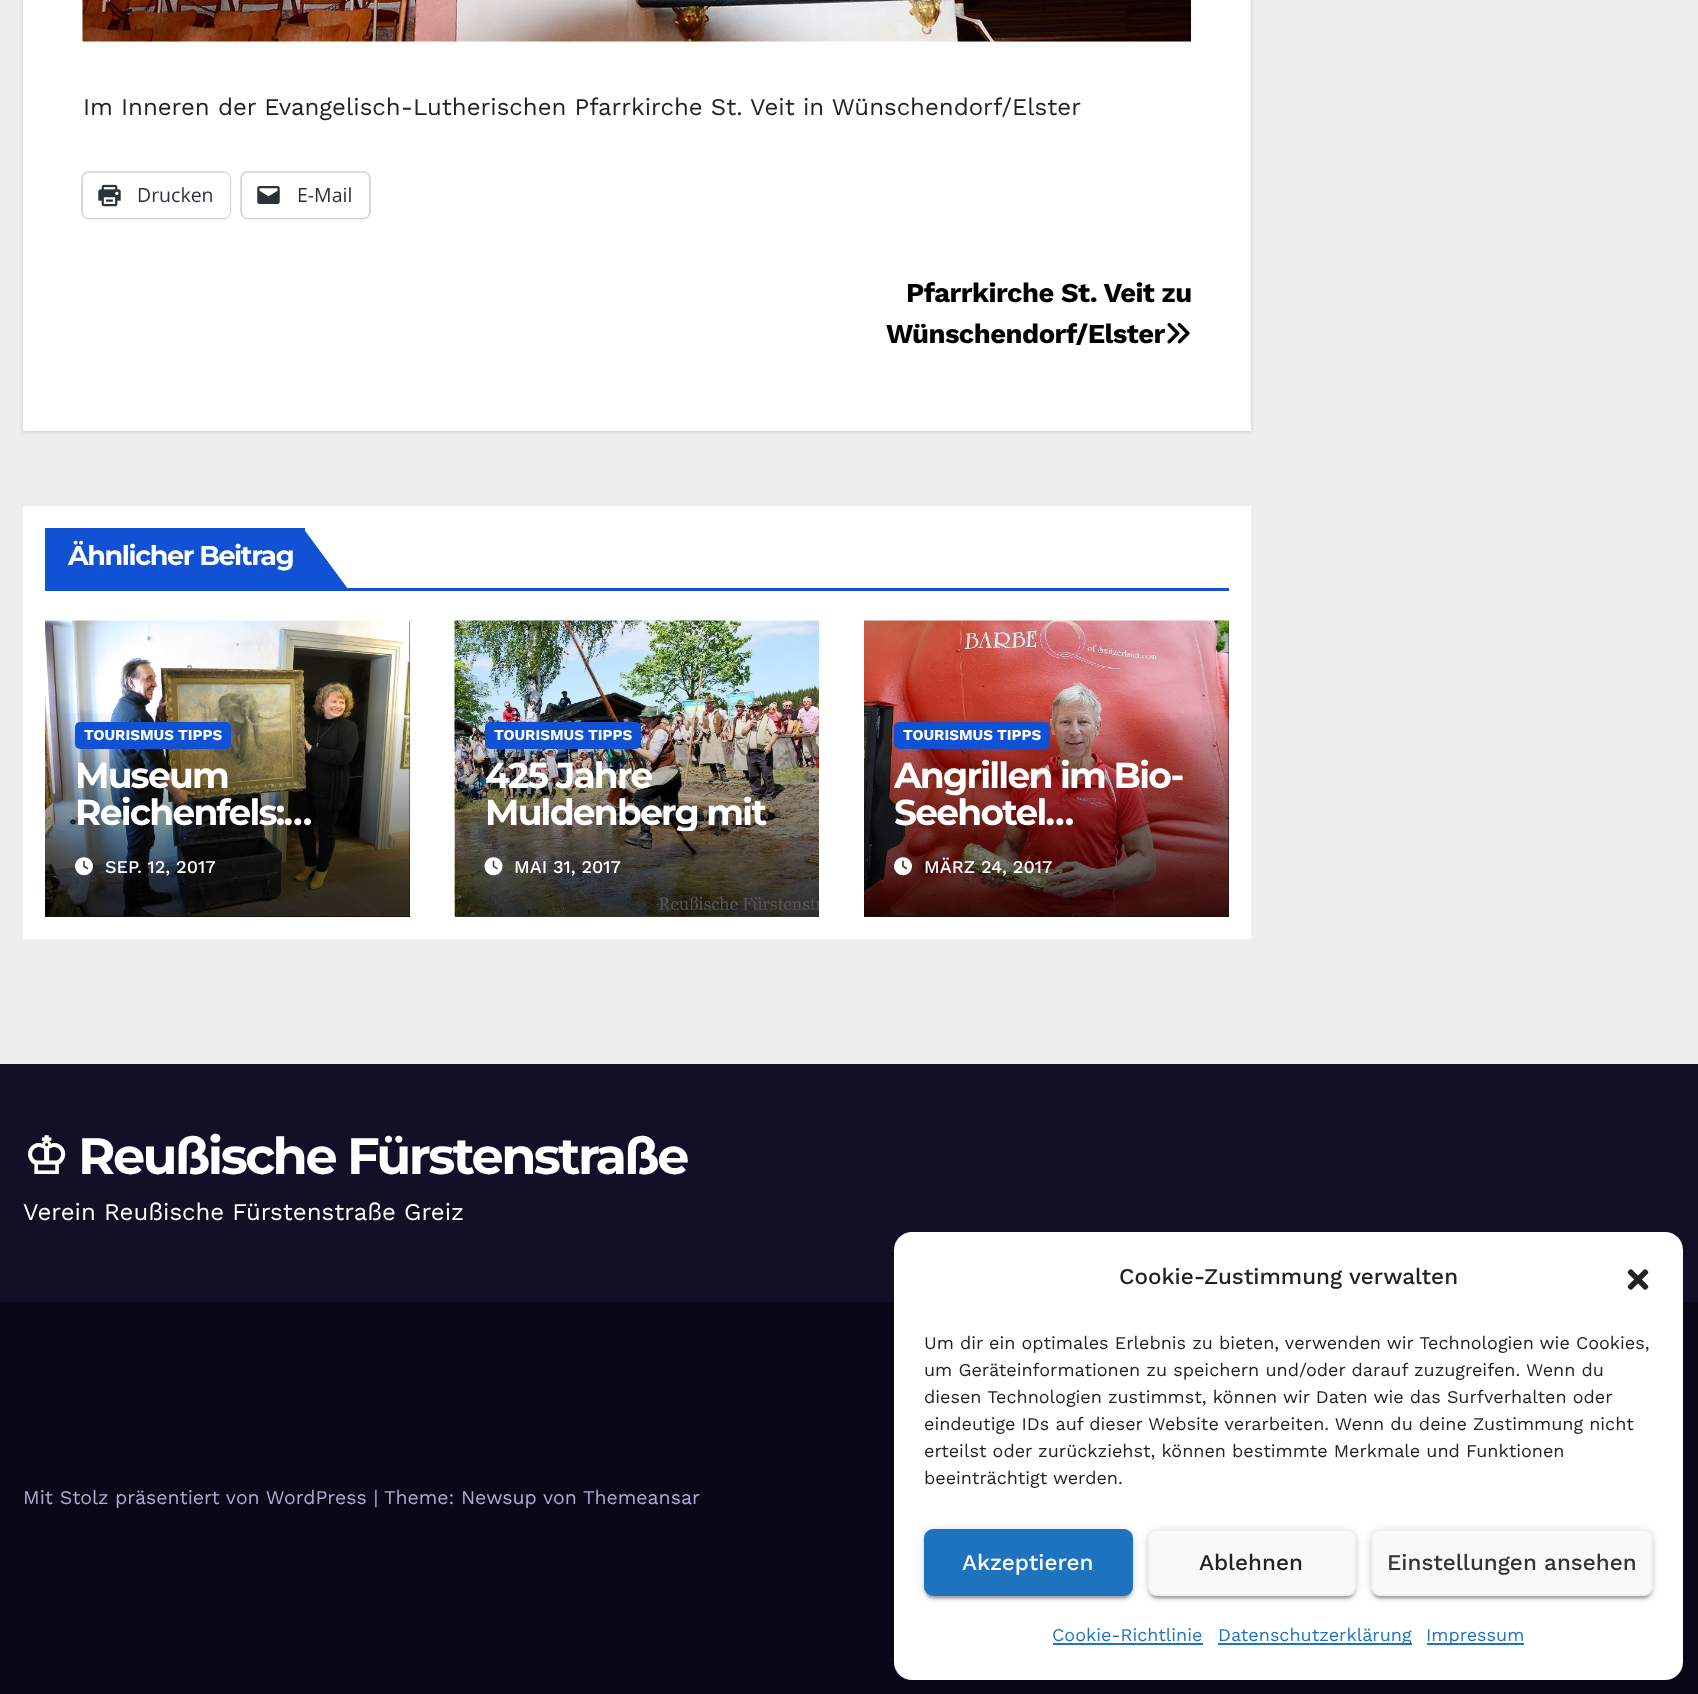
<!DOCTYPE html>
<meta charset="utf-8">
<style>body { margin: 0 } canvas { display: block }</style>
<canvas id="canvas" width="1698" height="1694"></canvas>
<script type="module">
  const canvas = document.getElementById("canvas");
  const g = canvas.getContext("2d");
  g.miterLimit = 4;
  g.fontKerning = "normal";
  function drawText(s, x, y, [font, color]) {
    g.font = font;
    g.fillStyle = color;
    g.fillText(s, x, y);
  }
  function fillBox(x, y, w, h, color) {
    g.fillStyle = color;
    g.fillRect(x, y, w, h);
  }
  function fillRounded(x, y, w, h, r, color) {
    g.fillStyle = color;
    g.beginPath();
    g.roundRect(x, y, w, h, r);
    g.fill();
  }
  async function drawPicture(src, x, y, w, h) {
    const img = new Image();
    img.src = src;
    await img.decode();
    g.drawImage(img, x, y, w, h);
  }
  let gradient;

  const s1 = ["24px Work Sans", "#222222"];
  const s2 = ["19.5px Open Sans", "#2C3338"];
  const s3 = ["bold 27.4px Work Sans", "#000000"];
  const s4 = ["bold 27px Montserrat", "#FFFFFF"];
  const s5 = ["bold 15px Work Sans", "#FFFFFF"];
  const s6 = ["bold 36px Montserrat", "#FFFFFF"];
  const s7 = ["500 18px Work Sans", "#FFFFFF"];
  const s8 = ["bold 51px DejaVu Sans", "#FFFFFF"];
  const s9 = ["bold 51px Montserrat", "#FFFFFF"];
  const s10 = ["24px Work Sans", "#FFFFFF"];
  const s11 = ["19.5px Work Sans", "#AAAED1"];
  const s12 = ["500 22.5px Work Sans", "#222222"];
  const s13 = ["18px Work Sans", "#222222"];
  const s14 = ["500 22.5px Work Sans", "#FFFFFF"];
  const s15 = ["500 22.5px Work Sans", "#333333"];
  const s16 = ["18px Work Sans", "#1E73BE"];

  fillBox(0, 0, 1698, 1694, "#EEEEEE");
  g.fillStyle = "rgba(0, 0, 0, 0.15)";
  g.filter = "blur(2px)";
  g.beginPath();
  g.rect(23, -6, 1228, 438);
  g.fill();
  g.filter = "none";
  fillBox(23, 0, 1228, 431, "#FFFFFF");
  await drawPicture("pic1.png", 82, 0, 1109, 42);
  drawText("Im Inneren der Evangelisch-Lutherischen Pfarrkirche St. Veit in Wünschendorf/Elster", 83, 115, s1);
  g.beginPath();
  g.roundRect(82, 172, 148, 46, 7);
  g.strokeStyle = "#E0E0E0";
  g.lineWidth = 2;
  g.stroke();
  g.fillStyle = "rgba(0, 0, 0, 0.12)";
  g.filter = "blur(1.5px)";
  g.beginPath();
  g.roundRect(83, 174, 147, 45, 6);
  g.fill();
  g.filter = "none";
  fillRounded(83, 173, 147, 45, 6, "#FFFFFF");
  await drawPicture("pic2.png", 98, 184, 23, 23);
  drawText("Drucken", 137, 202, s2);
  g.beginPath();
  g.roundRect(241, 172, 129, 46, 7);
  g.stroke();
  g.fillStyle = "rgba(0, 0, 0, 0.12)";
  g.filter = "blur(1.5px)";
  g.beginPath();
  g.roundRect(242, 174, 127, 45, 6);
  g.fill();
  g.filter = "none";
  fillRounded(242, 173, 127, 45, 6, "#FFFFFF");
  await drawPicture("pic3.png", 257, 186, 23, 18);
  drawText("E-Mail", 297, 202, s2);
  g.letterSpacing = "-0.55px";
  drawText("Pfarrkirche St. Veit zu", 906, 302, s3);
  drawText("Wünschendorf/Elster", 886, 343, s3);
  await drawPicture("pic4.png", 1167, 323, 23, 21);
  fillBox(23, 506, 1228, 433, "#FFFFFF");
  fillBox(45, 588, 1184, 3, "#1151D3");
  fillBox(45, 528, 260, 60, "#1151D3");
  g.letterSpacing = "-1.4px";
  drawText("Ähnlicher Beitrag", 68, 565, s4);
  g.fillStyle = "#1151D3";
  g.beginPath();
  g.moveTo(303, 528);
  g.lineTo(303, 589);
  g.lineTo(348, 589);
  g.closePath();
  g.fill();
  fillBox(45, 621, 365, 296, "#333333");
  await drawPicture("pic5.png", 45, 620, 365, 296);
  gradient = g.createLinearGradient(227, 707, 227, 917);
  gradient.addColorStop(0, "rgba(0, 0, 0, 0)");
  gradient.addColorStop(0.5, "rgba(0, 0, 0, 0.4)");
  gradient.addColorStop(1, "rgba(0, 0, 0, 0.7)");
  g.fillStyle = gradient;
  g.fillRect(45, 713, 365, 204);
  fillRounded(75, 722, 156, 27, 5, "#1151D3");
  g.letterSpacing = "0px";
  drawText("TOURISMUS TIPPS", 84, 740, s5);
  g.letterSpacing = "-1.75px";
  drawText("Museum", 75, 788, s6);
  drawText("Reichenfels:…", 75, 825, s6);
  await drawPicture("pic6.png", 75, 857, 18, 19);
  g.letterSpacing = "0px";
  drawText("SEP. 12, 2017", 105, 873, s7);
  fillBox(455, 916, 364, 1, "#333333");
  await drawPicture("pic7.png", 454, 620, 365, 296);
  fillRounded(485, 722, 156, 27, 5, "#1151D3");
  drawText("TOURISMUS TIPPS", 494, 740, s5);
  g.letterSpacing = "-1.75px";
  drawText("425 Jahre", 485, 788, s6);
  g.save();
  g.beginPath();
  g.rect(485, 756, 304, 75);
  g.clip();
  drawText("Muldenberg mit", 485, 825, s6);
  g.restore();
  await drawPicture("pic8.png", 484, 857, 19, 19);
  g.letterSpacing = "0px";
  drawText("MAI 31, 2017", 514, 873, s7);
  fillBox(864, 621, 365, 296, "#333333");
  await drawPicture("pic9.png", 864, 620, 365, 296);
  gradient = g.createLinearGradient(1046, 707, 1046, 917);
  gradient.addColorStop(0, "rgba(0, 0, 0, 0)");
  gradient.addColorStop(0.5, "rgba(0, 0, 0, 0.4)");
  gradient.addColorStop(1, "rgba(0, 0, 0, 0.7)");
  g.fillStyle = gradient;
  g.fillRect(864, 713, 365, 204);
  fillRounded(894, 722, 156, 27, 5, "#1151D3");
  drawText("TOURISMUS TIPPS", 903, 740, s5);
  g.letterSpacing = "-1.75px";
  drawText("Angrillen im Bio-", 894, 788, s6);
  drawText("Seehotel…", 894, 825, s6);
  await drawPicture("pic10.png", 894, 857, 18, 19);
  g.letterSpacing = "0px";
  drawText("MÄRZ 24, 2017", 924, 873, s7);
  fillBox(0, 1064, 1698, 238, "#121026");
  g.letterSpacing = "-2.55px";
  drawText("♔", 23, 1174, s8);
  drawText("Reußische Fürstenstraße", 78, 1174, s9);
  g.letterSpacing = "0px";
  drawText("Verein Reußische Fürstenstraße Greiz", 23, 1220, s10);
  fillBox(0, 1302, 1698, 392, "#090818");
  drawText("Mit Stolz präsentiert von WordPress |", 23, 1504, s11);
  drawText("Theme: Newsup von", 384, 1504, s11);
  drawText("Themeansar", 583, 1504, s11);
  fillRounded(894, 1232, 789, 448, 18, "#FFFFFF");
  drawText("Cookie-Zustimmung verwalten", 1119, 1284, s12);
  await drawPicture("pic11.png", 1627, 1269, 22, 21);
  drawText("Um dir ein optimales Erlebnis zu bieten, verwenden wir Technologien wie Cookies,", 924, 1349, s13);
  drawText("um Geräteinformationen zu speichern und/oder darauf zuzugreifen. Wenn du", 924, 1376, s13);
  drawText("diesen Technologien zustimmst, können wir Daten wie das Surfverhalten oder", 924, 1403, s13);
  drawText("eindeutige IDs auf dieser Website verarbeiten. Wenn du deine Zustimmung nicht", 924, 1430, s13);
  drawText("erteilst oder zurückziehst, können bestimmte Merkmale und Funktionen", 924, 1457, s13);
  drawText("beeinträchtigt werden.", 924, 1484, s13);
  g.fillStyle = "rgba(0, 0, 0, 0.12)";
  g.filter = "blur(4px)";
  g.beginPath();
  g.roundRect(924, 1530, 209, 68, 9);
  g.fill();
  g.filter = "none";
  g.fillStyle = "rgba(0, 0, 0, 0.2)";
  g.filter = "blur(1px)";
  g.beginPath();
  g.roundRect(927, 1536, 203, 62, 6);
  g.fill();
  g.filter = "none";
  g.fillStyle = "rgba(0, 0, 0, 0.14)";
  g.filter = "blur(1.5px)";
  g.beginPath();
  g.roundRect(924, 1532, 209, 67, 9);
  g.fill();
  g.filter = "none";
  g.fillStyle = "#1E73BE";
  g.beginPath();
  g.roundRect(925, 1530, 207, 65, 8);
  g.fill();
  g.strokeStyle = "#1E73BE";
  g.stroke();
  drawText("Akzeptieren", 962, 1570, s14);
  g.fillStyle = "rgba(0, 0, 0, 0.12)";
  g.filter = "blur(4px)";
  g.beginPath();
  g.roundRect(1148, 1530, 208, 68, 9);
  g.fill();
  g.filter = "none";
  g.fillStyle = "rgba(0, 0, 0, 0.2)";
  g.filter = "blur(1px)";
  g.beginPath();
  g.roundRect(1151, 1536, 202, 62, 6);
  g.fill();
  g.filter = "none";
  g.fillStyle = "rgba(0, 0, 0, 0.14)";
  g.filter = "blur(1.5px)";
  g.beginPath();
  g.roundRect(1148, 1532, 208, 67, 9);
  g.fill();
  g.filter = "none";
  g.fillStyle = "#F9F9F9";
  g.beginPath();
  g.roundRect(1149, 1530, 206, 65, 8);
  g.fill();
  g.strokeStyle = "#F2F2F2";
  g.stroke();
  drawText("Ablehnen", 1199, 1570, s12);
  g.fillStyle = "rgba(0, 0, 0, 0.12)";
  g.filter = "blur(4px)";
  g.beginPath();
  g.roundRect(1371, 1530, 282, 68, 9);
  g.fill();
  g.filter = "none";
  g.fillStyle = "rgba(0, 0, 0, 0.2)";
  g.filter = "blur(1px)";
  g.beginPath();
  g.roundRect(1374, 1536, 276, 62, 6);
  g.fill();
  g.filter = "none";
  g.fillStyle = "rgba(0, 0, 0, 0.14)";
  g.filter = "blur(1.5px)";
  g.beginPath();
  g.roundRect(1371, 1532, 282, 67, 9);
  g.fill();
  g.filter = "none";
  g.fillStyle = "#F9F9F9";
  g.beginPath();
  g.roundRect(1372, 1530, 280, 65, 8);
  g.fill();
  g.stroke();
  drawText("Einstellungen ansehen", 1387, 1570, s15);
  drawText("Cookie-Richtlinie", 1052, 1641, s16);
  fillBox(1053, 1643, 150, 2, "#1E73BE");
  fillBox(1218, 1643, 194, 2, "#1E73BE");
  drawText("Datenschutzerklärung", 1218, 1641, s16);
  fillBox(1427, 1643, 97, 2, "#1E73BE");
  drawText("Impressum", 1426, 1641, s16);
</script>
